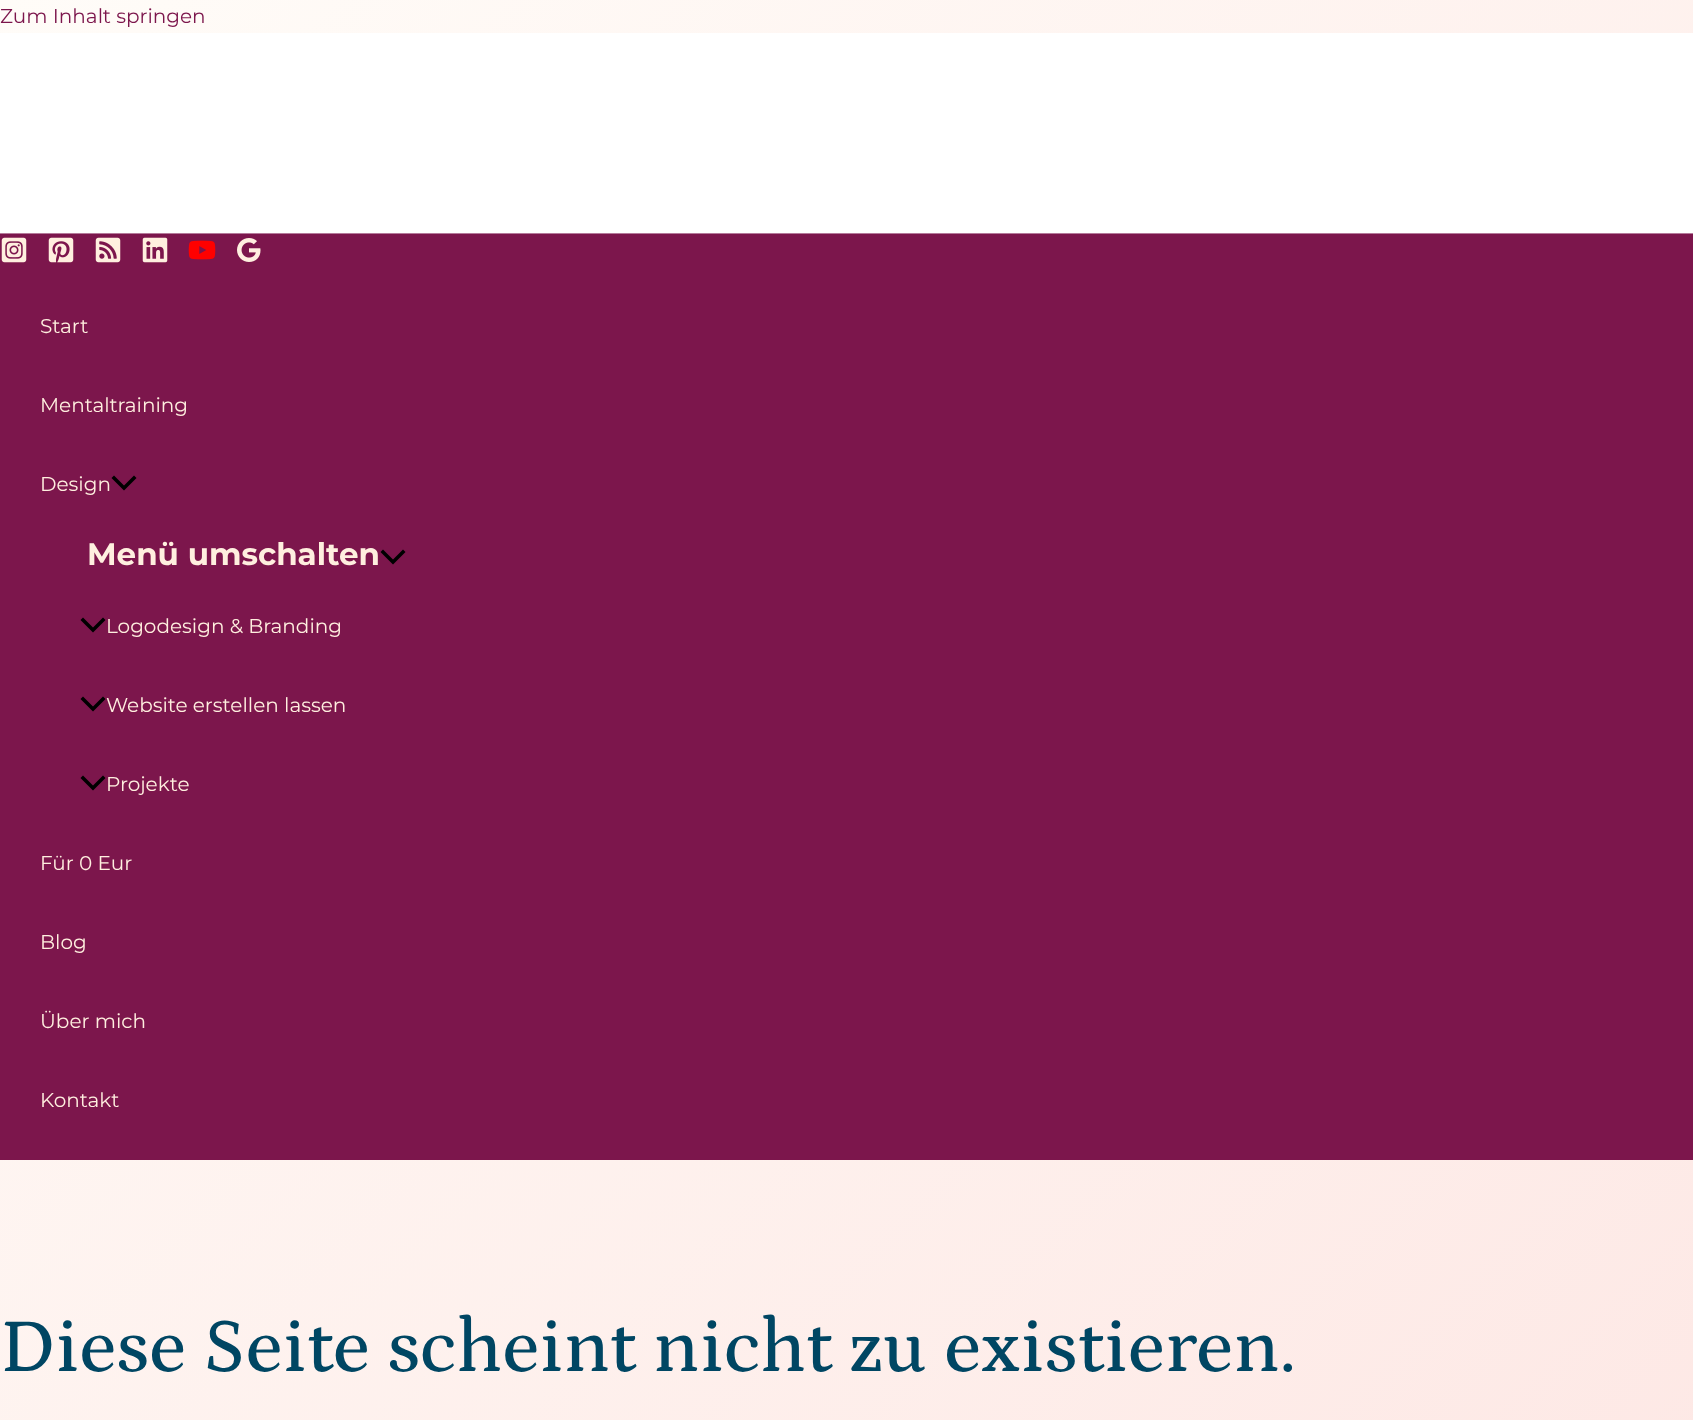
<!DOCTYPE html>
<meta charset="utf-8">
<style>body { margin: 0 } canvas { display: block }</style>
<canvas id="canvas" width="1693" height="1420"></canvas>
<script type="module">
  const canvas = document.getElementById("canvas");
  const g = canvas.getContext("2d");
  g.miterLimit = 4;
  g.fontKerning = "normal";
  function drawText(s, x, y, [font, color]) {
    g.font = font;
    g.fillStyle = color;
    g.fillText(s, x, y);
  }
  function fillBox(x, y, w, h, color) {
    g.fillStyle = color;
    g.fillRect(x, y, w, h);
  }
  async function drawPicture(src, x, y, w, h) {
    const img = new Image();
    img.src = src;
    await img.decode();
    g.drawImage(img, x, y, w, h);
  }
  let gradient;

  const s1 = ["20px Montserrat", "#7C164C"];
  const s2 = ["20px Montserrat", "#FFEFDF"];
  const s3 = ["bold 31px Montserrat", "#FFEFDF"];
  const s4 = ["500 77px Petrona", "#004663"];

  fillBox(0, 0, 1693, 1420, "#FFFFFF");
  gradient = g.createLinearGradient(-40, 40, 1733, 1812);
  gradient.addColorStop(0, "#FFFCF8");
  gradient.addColorStop(1, "#FDE6E3");
  g.fillStyle = gradient;
  g.fillRect(0, 0, 1693, 1420);
  drawText("Zum Inhalt springen", 0, 23, s1);
  fillBox(0, 33, 1693, 200, "#FFFFFF");
  fillBox(0, 233, 1693, 1, "#B57A9A");
  fillBox(0, 234, 1693, 926, "#7C164C");
  await drawPicture("pic1.png", 1, 237, 26, 26);
  await drawPicture("pic2.png", 48, 237, 26, 26);
  await drawPicture("pic3.png", 95, 237, 26, 26);
  await drawPicture("pic4.png", 142, 237, 26, 26);
  await drawPicture("pic5.png", 188, 240, 28, 20);
  await drawPicture("pic6.png", 237, 238, 24, 24);
  drawText("Start", 40, 333, s2);
  drawText("Mentaltraining", 40, 412, s2);
  drawText("Design", 40, 491, s2);
  g.fillStyle = "#000000";
  g.beginPath();
  g.moveTo(111.5, 478);
  g.lineTo(124, 490.5);
  g.lineTo(136.5, 478);
  g.lineTo(134, 475.5);
  g.lineTo(124, 485.5);
  g.lineTo(114, 475.5);
  g.closePath();
  g.fill();
  drawText("Menü umschalten", 87, 565, s3);
  g.fillStyle = "#000000";
  g.beginPath();
  g.moveTo(380.5, 552);
  g.lineTo(393, 564.5);
  g.lineTo(405.5, 552);
  g.lineTo(403, 549.5);
  g.lineTo(393, 559.5);
  g.lineTo(383, 549.5);
  g.closePath();
  g.fill();
  g.beginPath();
  g.moveTo(80.5, 620);
  g.lineTo(93, 632.5);
  g.lineTo(105.5, 620);
  g.lineTo(103, 617.5);
  g.lineTo(93, 627.5);
  g.lineTo(83, 617.5);
  g.closePath();
  g.fill();
  drawText("Logodesign & Branding", 106, 633, s2);
  g.fillStyle = "#000000";
  g.beginPath();
  g.moveTo(80.5, 699);
  g.lineTo(93, 711.5);
  g.lineTo(105.5, 699);
  g.lineTo(103, 696.5);
  g.lineTo(93, 706.5);
  g.lineTo(83, 696.5);
  g.closePath();
  g.fill();
  drawText("Website erstellen lassen", 106, 712, s2);
  g.fillStyle = "#000000";
  g.beginPath();
  g.moveTo(80.5, 778);
  g.lineTo(93, 790.5);
  g.lineTo(105.5, 778);
  g.lineTo(103, 775.5);
  g.lineTo(93, 785.5);
  g.lineTo(83, 775.5);
  g.closePath();
  g.fill();
  drawText("Projekte", 106, 791, s2);
  drawText("Für 0 Eur", 40, 870, s2);
  drawText("Blog", 40, 949, s2);
  drawText("Über mich", 40, 1028, s2);
  drawText("Kontakt", 40, 1107, s2);
  drawText("Diese Seite scheint nicht zu existieren.", 0, 1371, s4);
</script>
